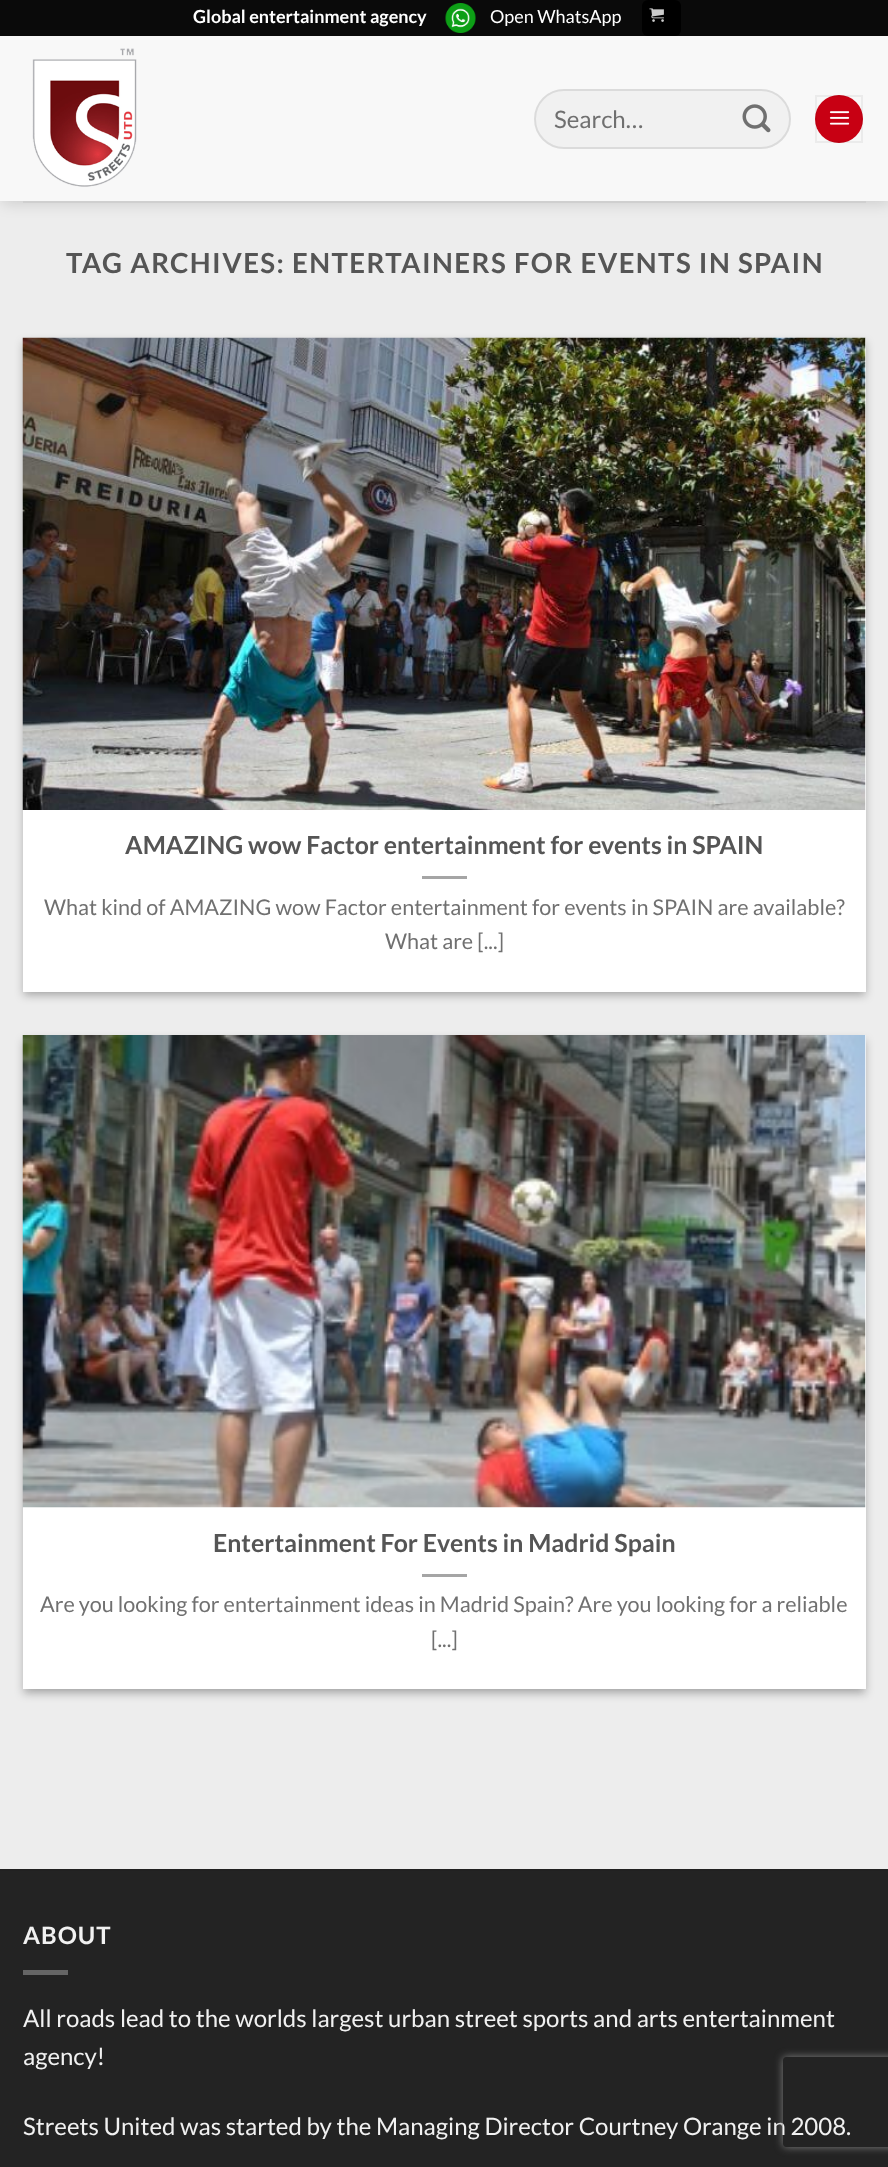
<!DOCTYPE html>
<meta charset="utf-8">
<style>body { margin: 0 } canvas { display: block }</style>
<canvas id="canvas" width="888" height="2167"></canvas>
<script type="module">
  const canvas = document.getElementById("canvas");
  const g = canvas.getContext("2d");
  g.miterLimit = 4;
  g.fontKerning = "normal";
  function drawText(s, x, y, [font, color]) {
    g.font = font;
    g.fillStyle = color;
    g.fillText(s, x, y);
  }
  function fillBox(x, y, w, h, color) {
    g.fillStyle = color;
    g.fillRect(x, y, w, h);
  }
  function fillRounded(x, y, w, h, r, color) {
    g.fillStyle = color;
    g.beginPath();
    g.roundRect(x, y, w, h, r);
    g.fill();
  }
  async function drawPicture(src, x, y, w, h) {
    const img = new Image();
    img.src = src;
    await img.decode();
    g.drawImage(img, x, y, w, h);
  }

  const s1 = ["bold 18px Lato", "#FFFFFF"];
  const s2 = ["18px Lato", "#FFFFFF"];
  const s3 = ["24px Lato", "#707070"];
  const s4 = ["bold 27.6px Lato", "#555555"];
  const s5 = ["bold 24.85px Lato", "#555555"];
  const s6 = ["21.6px Lato", "#707070"];
  const s7 = ["bold 24px Lato", "#F1F1F1"];
  const s8 = ["24px Lato", "#F1F1F1"];

  fillBox(0, 0, 888, 2167, "#EDEDED");
  g.fillStyle = "rgba(0, 0, 0, 0.15)";
  g.filter = "blur(7.5px)";
  g.beginPath();
  g.rect(2, 2, 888, 201);
  g.fill();
  g.filter = "none";
  fillBox(0, 0, 888, 36, "#0A0A0A");
  drawText("Global entertainment agency", 193, 23, s1);
  await drawPicture("pic1.png", 445, 3, 31, 30);
  drawText("Open WhatsApp", 490, 23, s2);
  fillRounded(642, 0, 39, 36, 6, "#000000");
  await drawPicture("pic2.png", 649, 8, 15, 14);
  fillBox(0, 36, 888, 165, "#F8F8F8");
  await drawPicture("pic3.png", 32, 48, 105, 139);
  fillRounded(534, 89, 257, 60, 30, "#F1F1F1");
  g.beginPath();
  g.roundRect(535, 90, 255, 58, 29);
  g.strokeStyle = "rgba(0, 0, 0, 0.09)";
  g.lineWidth = 2;
  g.stroke();
  drawText("Search…", 554, 128, s3);
  await drawPicture("pic4.png", 742, 104, 29, 29);
  g.fillStyle = "#C80013";
  g.beginPath();
  g.arc(839, 119, 24, 0, Math.PI * 2);
  g.fill();
  g.strokeStyle = "rgba(0, 0, 0, 0.05)";
  g.strokeRect(816, 96, 46, 46);
  await drawPicture("pic5.png", 829, 111, 21, 14);
  fillBox(23, 201, 843, 2, "#CFCFCF");
  g.letterSpacing = "1.4px";
  drawText("TAG ARCHIVES: ENTERTAINERS FOR EVENTS IN SPAIN", 66, 273, s4);
  g.fillStyle = "rgba(0, 0, 0, 0.23)";
  g.filter = "blur(4.5px)";
  g.beginPath();
  g.rect(23, 342, 843, 654);
  g.fill();
  g.filter = "none";
  g.fillStyle = "rgba(0, 0, 0, 0.16)";
  g.filter = "blur(4.5px)";
  g.beginPath();
  g.rect(29, 348, 831, 642);
  g.fill();
  g.filter = "none";
  fillBox(23, 338, 843, 654, "#FFFFFF");
  await drawPicture("pic6.png", 22, 337, 844, 473);
  g.letterSpacing = "0px";
  drawText("AMAZING wow Factor entertainment for events in SPAIN", 125, 854, s5);
  fillBox(422, 876, 45, 3, "#A5A5A5");
  drawText("What kind of AMAZING wow Factor entertainment for events in SPAIN are available?", 44, 915, s6);
  drawText("What are [...]", 385, 949, s6);
  g.fillStyle = "rgba(0, 0, 0, 0.23)";
  g.filter = "blur(4.5px)";
  g.beginPath();
  g.rect(23, 1040, 843, 654);
  g.fill();
  g.filter = "none";
  g.fillStyle = "rgba(0, 0, 0, 0.16)";
  g.filter = "blur(4.5px)";
  g.beginPath();
  g.rect(29, 1046, 831, 642);
  g.fill();
  g.filter = "none";
  fillBox(23, 1035, 843, 654, "#FFFFFF");
  await drawPicture("pic7.png", 22, 1035, 844, 473);
  drawText("Entertainment For Events in Madrid Spain", 213, 1552, s5);
  fillBox(422, 1574, 45, 3, "#A5A5A5");
  drawText("Are you looking for entertainment ideas in Madrid Spain? Are you looking for a reliable", 40, 1612, s6);
  drawText("[...]", 431, 1647, s6);
  fillBox(0, 1871, 888, 296, "#232323");
  fillBox(0, 1869, 888, 2, "#212121");
  g.letterSpacing = "1px";
  drawText("ABOUT", 23, 1944, s7);
  fillBox(23, 1970, 45, 5, "#656565");
  g.letterSpacing = "0px";
  drawText("All roads lead to the worlds largest urban street sports and arts entertainment", 23, 2027, s8);
  drawText("agency!", 23, 2065, s8);
  drawText("Streets United was started by the Managing Director Courtney Orange in 2008.", 23, 2135, s8);
  g.save();
  g.beginPath();
  g.moveTo(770, 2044);
  g.lineTo(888, 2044);
  g.lineTo(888, 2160);
  g.lineTo(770, 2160);
  g.closePath();
  g.moveTo(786, 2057);
  g.lineTo(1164, 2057);
  g.bezierCurveTo(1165.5, 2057, 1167, 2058.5, 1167, 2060);
  g.lineTo(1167, 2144);
  g.bezierCurveTo(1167, 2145.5, 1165.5, 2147, 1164, 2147);
  g.lineTo(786, 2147);
  g.bezierCurveTo(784.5, 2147, 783, 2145.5, 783, 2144);
  g.lineTo(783, 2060);
  g.bezierCurveTo(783, 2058.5, 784.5, 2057, 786, 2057);
  g.closePath();
  g.clip("evenodd");
  g.fillStyle = "#808080";
  g.filter = "blur(4px)";
  g.beginPath();
  g.roundRect(783, 2057, 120, 90, 3);
  g.fill();
  g.filter = "none";
  g.restore();
</script>
